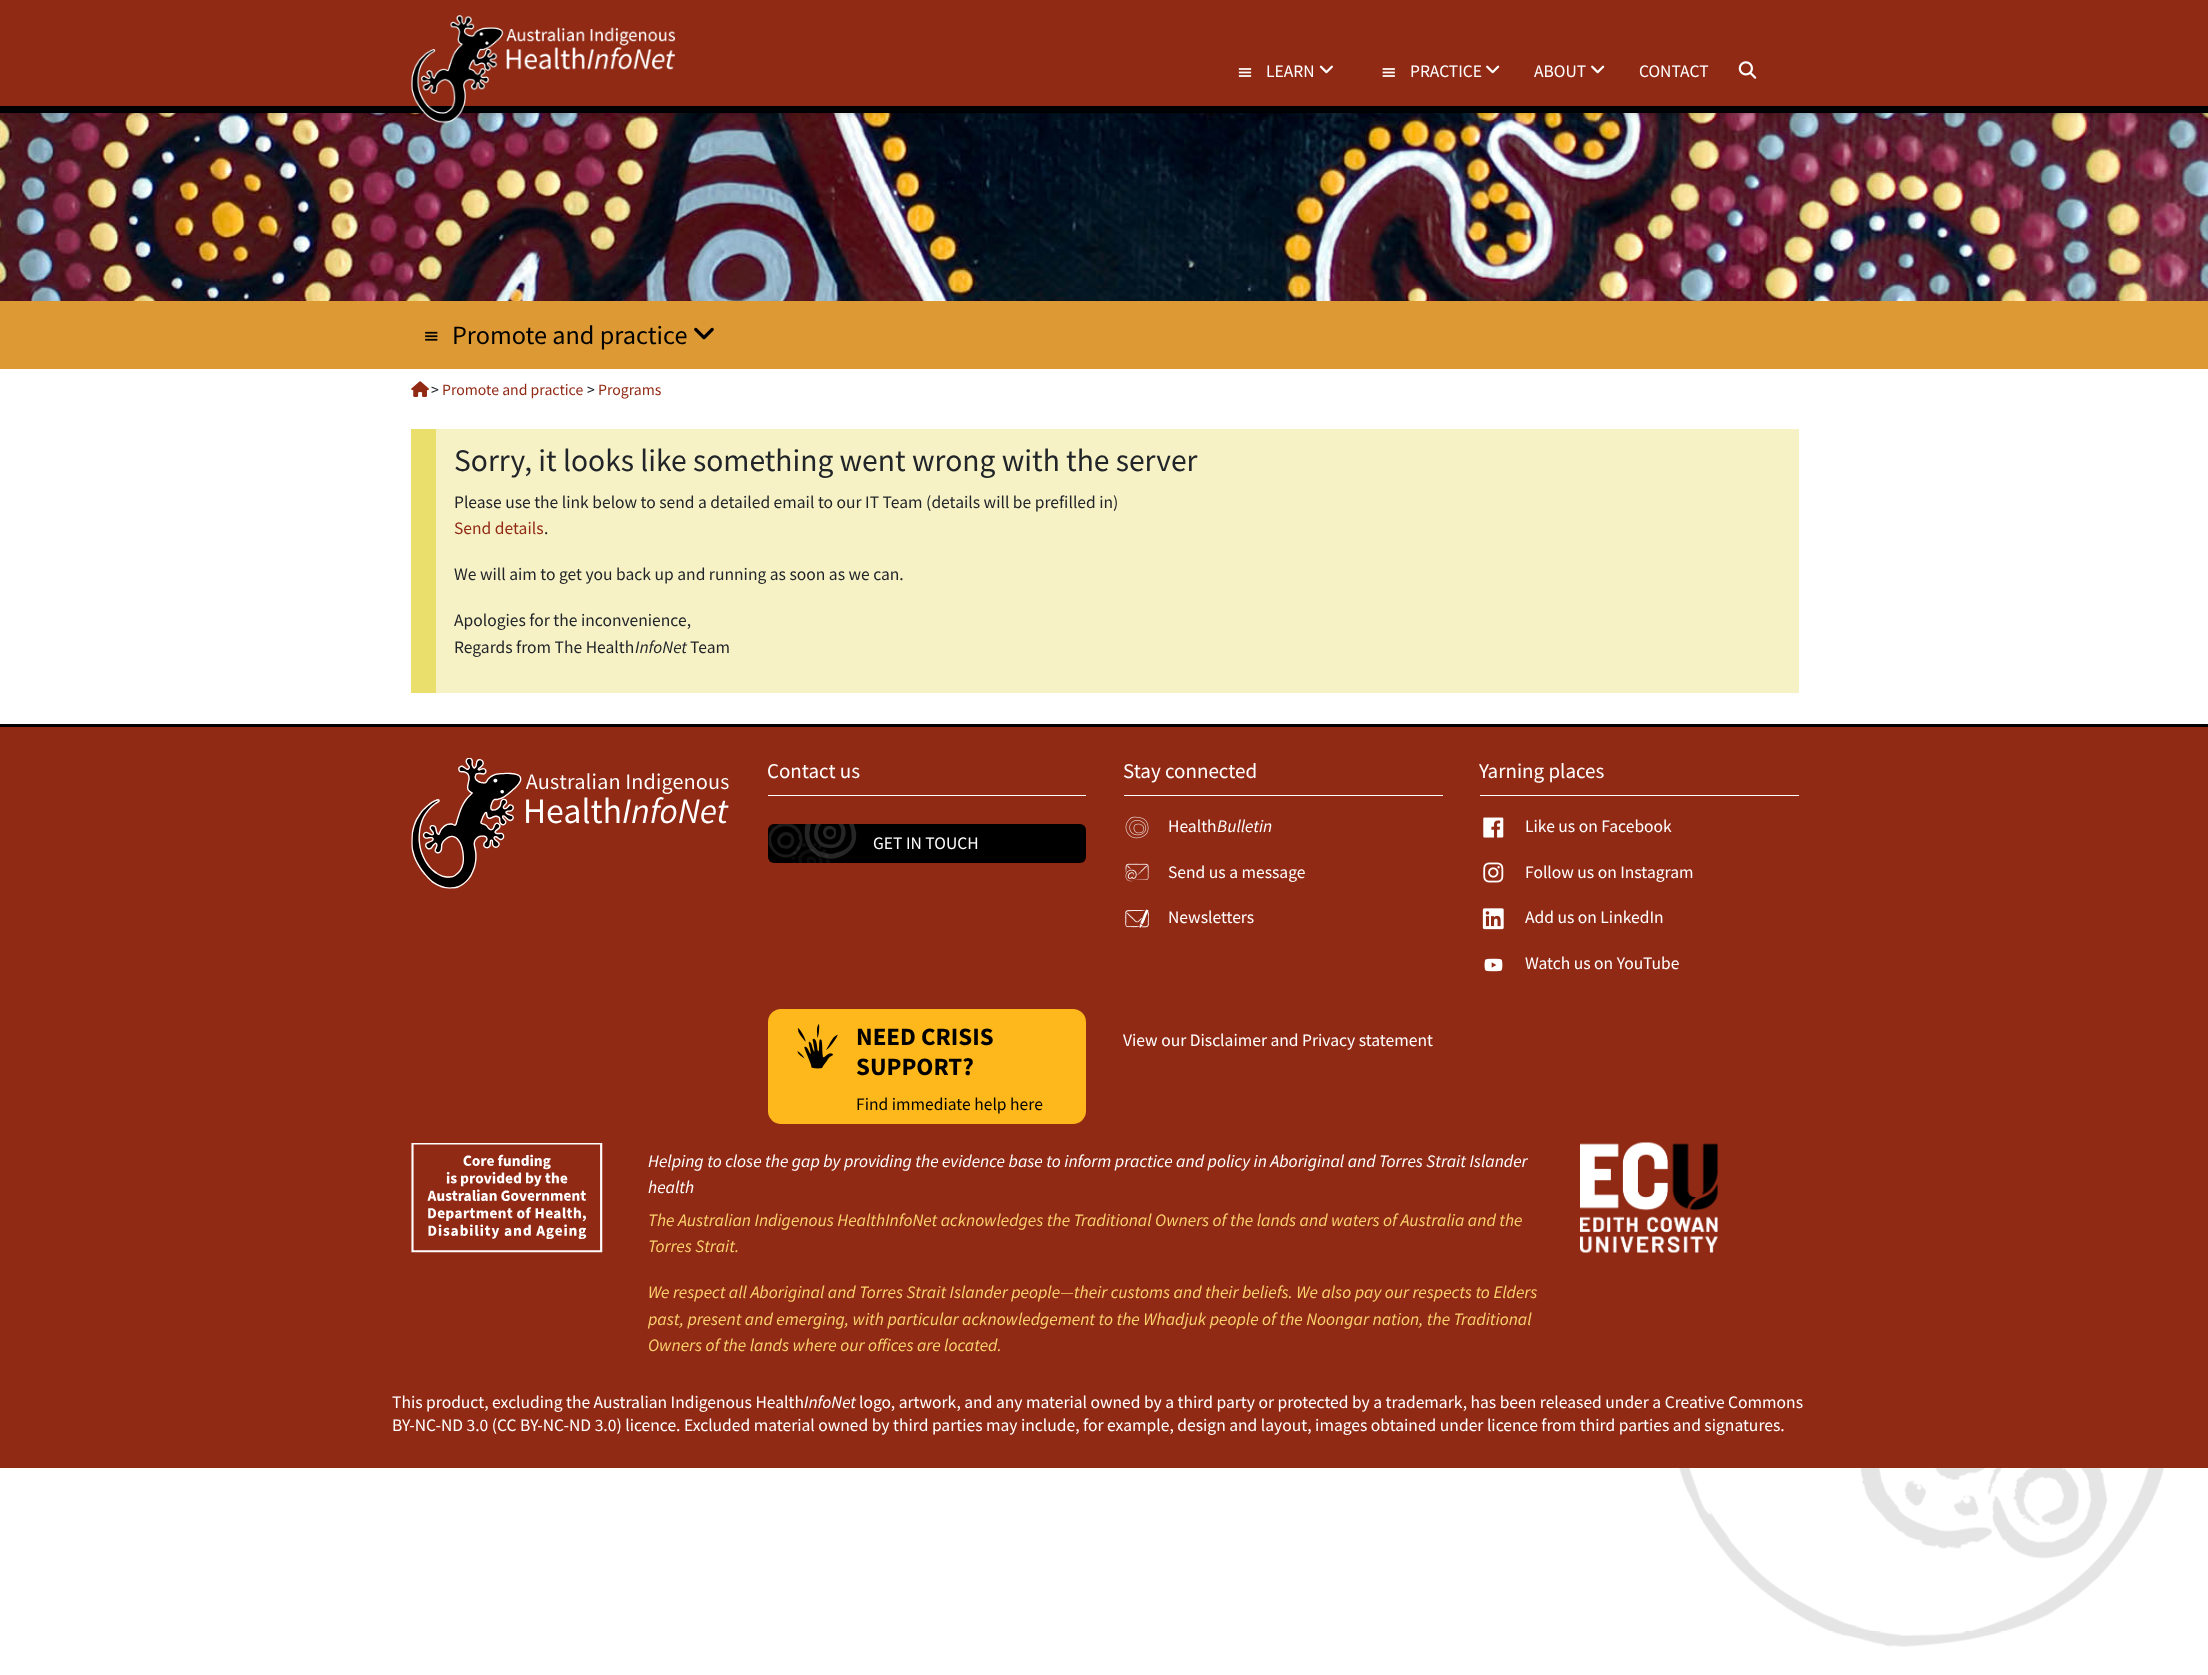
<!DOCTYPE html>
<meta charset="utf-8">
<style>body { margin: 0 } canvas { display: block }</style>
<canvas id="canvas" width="2208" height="1675"></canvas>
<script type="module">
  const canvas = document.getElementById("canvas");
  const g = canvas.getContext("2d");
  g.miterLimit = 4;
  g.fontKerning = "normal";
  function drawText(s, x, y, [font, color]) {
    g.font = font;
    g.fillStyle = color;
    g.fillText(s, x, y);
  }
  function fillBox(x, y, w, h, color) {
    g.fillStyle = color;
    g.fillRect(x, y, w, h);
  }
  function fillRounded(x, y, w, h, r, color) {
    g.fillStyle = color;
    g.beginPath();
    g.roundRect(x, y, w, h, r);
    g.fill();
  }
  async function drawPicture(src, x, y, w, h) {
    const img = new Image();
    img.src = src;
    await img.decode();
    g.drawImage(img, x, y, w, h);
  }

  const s1 = ["17.5px Source Sans Pro", "#FFFFFF"];
  const s2 = ["26.25px Source Sans Pro", "#000000"];
  const s3 = ["15.75px Source Sans Pro", "#212529"];
  const s4 = ["15.75px Source Sans Pro", "#912A15"];
  const s5 = ["31.5px Source Sans Pro", "#212529"];
  const s6 = ["17.5px Source Sans Pro", "#212529"];
  const s7 = ["17.5px Source Sans Pro", "#912A15"];
  const s8 = ["italic 17.5px Source Sans Pro", "#212529"];
  const s9 = ["21px Source Sans Pro", "#FFFFFF"];
  const s10 = ["italic 17.5px Source Sans Pro", "#FFFFFF"];
  const s11 = ["bold 25px Source Sans Pro", "#000000"];
  const s12 = ["17.5px Source Sans Pro", "#000000"];
  const s13 = ["italic 17.5px Source Sans Pro", "#FDD26E"];

  fillBox(0, 0, 2208, 1675, "#FFFFFF");
  await drawPicture("pic7.png", 0, 113, 2208, 188);
  g.fillStyle = "rgba(0, 0, 0, 0.2)";
  g.filter = "blur(3px)";
  g.beginPath();
  g.rect(0, 0, 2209, 113);
  g.fill();
  g.filter = "none";
  fillBox(0, 0, 2208, 106, "#912A15");
  fillBox(0, 106, 2208, 7, "#000000");
  await drawPicture("pic1.png", 411, 15, 264, 108);
  await drawPicture("pic2.png", 1238, 68, 14, 9);
  drawText("LEARN", 1266, 77, s1);
  await drawPicture("pic3.png", 1319, 65, 14, 9);
  await drawPicture("pic4.png", 1382, 68, 13, 9);
  drawText("PRACTICE", 1410, 77, s1);
  await drawPicture("pic5.png", 1486, 65, 14, 9);
  drawText("ABOUT", 1534, 77, s1);
  await drawPicture("pic5.png", 1591, 65, 14, 9);
  drawText("CONTACT", 1639, 77, s1);
  await drawPicture("pic6.png", 1738, 61, 19, 18);
  fillBox(0, 301, 2208, 68, "#DD9933");
  await drawPicture("pic8.png", 425, 331, 13, 10);
  drawText("Promote and practice", 452, 344, s2);
  await drawPicture("pic9.png", 694, 327, 20, 13);
  await drawPicture("pic10.png", 411, 381, 18, 16);
  drawText(">", 431, 395, s3);
  drawText("Promote and practice", 442, 395, s4);
  drawText(">", 587, 395, s3);
  drawText("Programs", 598, 395, s4);
  fillBox(436, 429, 1363, 264, "#F7F2C6");
  fillBox(411, 429, 25, 264, "#EADE6D");
  drawText("Sorry, it looks like something went wrong with the server", 454, 471, s5);
  drawText("Please use the link below to send a detailed email to our IT Team (details will be prefilled in)", 454, 508, s6);
  drawText("Send details", 454, 534, s7);
  drawText(".", 544, 534, s6);
  drawText("We will aim to get you back up and running as soon as we can.", 454, 580, s6);
  drawText("Apologies for the inconvenience,", 454, 626, s6);
  drawText("Regards from The Health", 454, 653, s6);
  drawText("InfoNet", 635, 653, s8);
  drawText("Team", 690, 653, s6);
  await drawPicture("pic11.png", 1679, 1468, 485, 179);
  fillBox(0, 727, 2208, 741, "#912A15");
  fillBox(0, 724, 2208, 3, "#000000");
  await drawPicture("pic12.png", 411, 758, 318, 131);
  fillBox(768, 795, 318, 1, "#FFFFFF");
  drawText("Contact us", 767, 778, s9);
  fillRounded(768, 824, 318, 39, 6, "#000000");
  await drawPicture("pic13.png", 768, 824, 89, 39);
  drawText("GET IN TOUCH", 873, 849, s1);
  fillBox(1124, 795, 319, 1, "#FFFFFF");
  drawText("Stay connected", 1123, 778, s9);
  await drawPicture("pic14.png", 1125, 816, 24, 23);
  drawText("Health", 1168, 832, s1);
  drawText("Bulletin", 1217, 832, s10);
  await drawPicture("pic15.png", 1125, 863, 24, 19);
  drawText("Send us a message", 1168, 878, s1);
  await drawPicture("pic16.png", 1125, 909, 24, 19);
  drawText("Newsletters", 1168, 923, s1);
  fillBox(1480, 795, 319, 1, "#FFFFFF");
  drawText("Yarning places", 1479, 778, s9);
  await drawPicture("pic17.png", 1483, 817, 21, 21);
  drawText("Like us on Facebook", 1525, 832, s1);
  await drawPicture("pic18.png", 1483, 862, 21, 21);
  drawText("Follow us on Instagram", 1525, 878, s1);
  await drawPicture("pic19.png", 1482, 908, 22, 22);
  drawText("Add us on LinkedIn", 1525, 923, s1);
  await drawPicture("pic20.png", 1484, 958, 19, 14);
  drawText("Watch us on YouTube", 1525, 969, s1);
  fillRounded(768, 1009, 318, 115, 13, "#FFB81C");
  await drawPicture("pic21.png", 797, 1024, 41, 45);
  drawText("NEED CRISIS", 856, 1045, s11);
  drawText("SUPPORT?", 856, 1075, s11);
  drawText("Find immediate help here", 856, 1110, s12);
  drawText("View our Disclaimer and Privacy statement", 1123, 1046, s1);
  await drawPicture("pic22.png", 411, 1143, 192, 110);
  drawText("Helping to close the gap by providing the evidence base to inform practice and policy in Aboriginal and Torres Strait Islander", 648, 1167, s10);
  drawText("health", 648, 1193, s10);
  drawText("The Australian Indigenous HealthInfoNet acknowledges the Traditional Owners of the lands and waters of Australia and the", 648, 1226, s13);
  drawText("Torres Strait.", 648, 1252, s13);
  drawText("We respect all Aboriginal and Torres Strait Islander people—their customs and their beliefs. We also pay our respects to Elders", 648, 1298, s13);
  drawText("past, present and emerging, with particular acknowledgement to the Whadjuk people of the Noongar nation, the Traditional", 648, 1325, s13);
  drawText("Owners of the lands where our offices are located.", 648, 1351, s13);
  await drawPicture("pic23.png", 1580, 1142, 138, 111);
  drawText("This product, excluding the Australian Indigenous Health", 392, 1408, s1);
  drawText("InfoNet", 804, 1408, s10);
  drawText("logo, artwork, and any material owned by a third party or protected by a trademark, has been released under a Creative Commons", 859, 1408, s1);
  drawText("BY-NC-ND 3.0 (CC BY-NC-ND 3.0) licence. Excluded material owned by third parties may include, for example, design and layout, images obtained under licence from third parties and signatures.", 392, 1431, s1);
</script>
